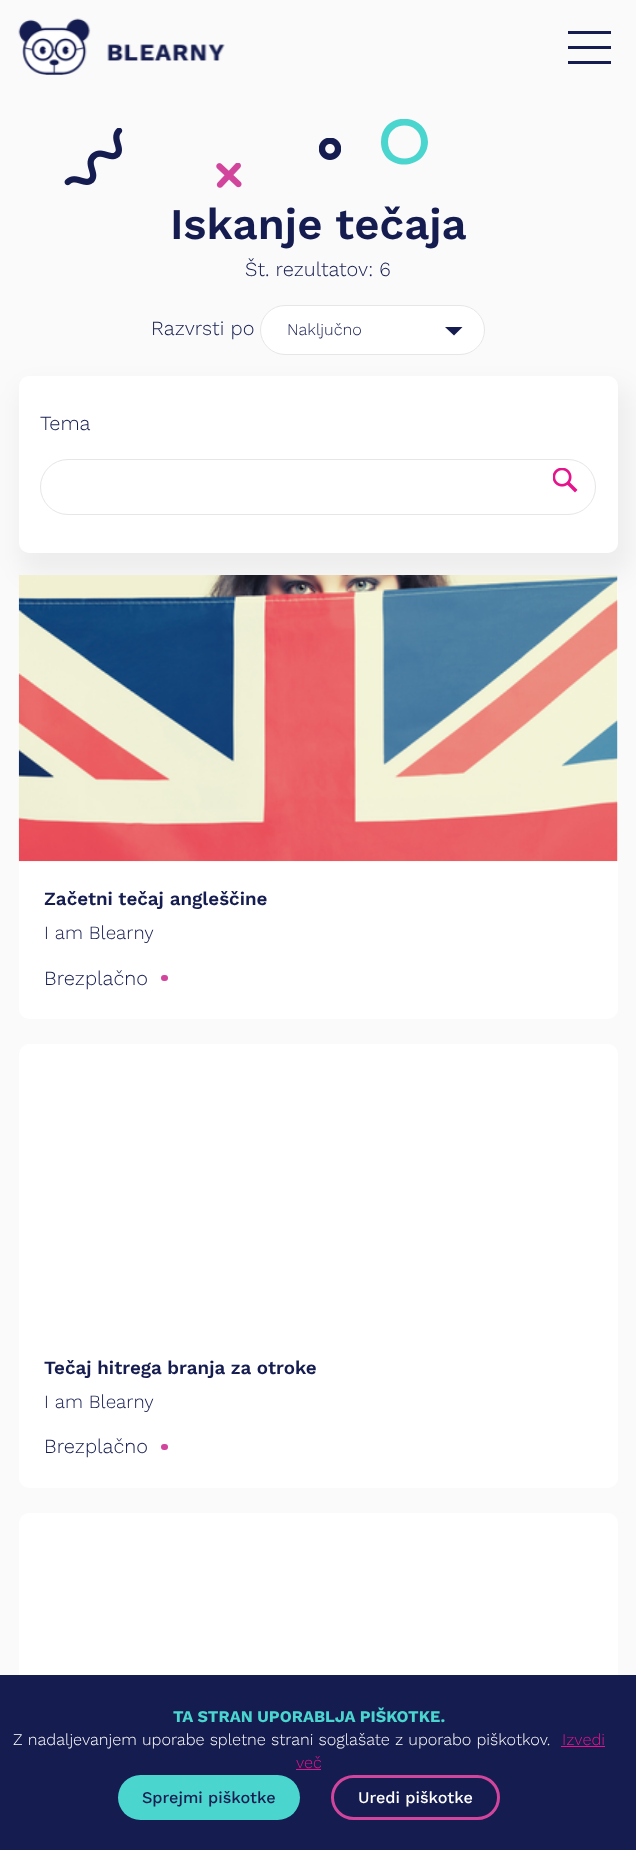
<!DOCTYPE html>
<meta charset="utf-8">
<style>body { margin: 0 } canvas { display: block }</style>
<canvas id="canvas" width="636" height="1850"></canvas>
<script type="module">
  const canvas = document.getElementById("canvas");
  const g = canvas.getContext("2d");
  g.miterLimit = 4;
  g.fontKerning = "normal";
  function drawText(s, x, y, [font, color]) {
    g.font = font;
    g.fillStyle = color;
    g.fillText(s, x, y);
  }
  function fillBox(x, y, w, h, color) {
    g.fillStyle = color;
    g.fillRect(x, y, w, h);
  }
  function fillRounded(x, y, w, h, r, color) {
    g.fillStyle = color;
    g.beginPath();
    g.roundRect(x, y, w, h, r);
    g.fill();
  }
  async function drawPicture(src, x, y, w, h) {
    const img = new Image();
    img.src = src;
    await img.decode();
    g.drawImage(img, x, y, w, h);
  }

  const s1 = ["600 43.75px Work Sans", "#151C4F"];
  const s2 = ["300 20px Work Sans", "#151C4F"];
  const s3 = ["300 16.25px Work Sans", "#151C4F"];
  const s4 = ["600 18.75px Work Sans", "#151C4F"];
  const s5 = ["300 18.75px Work Sans", "#151C4F"];
  const s6 = ["bold 16.25px Work Sans", "#4AD5CF"];
  const s7 = ["300 16.25px Work Sans", "#FFFFFF"];
  const s8 = ["300 16.25px Work Sans", "#E5158C"];
  const s9 = ["500 16.25px Work Sans", "#151C4F"];
  const s10 = ["500 16.25px Work Sans", "#FFFFFF"];

  fillBox(0, 0, 636, 1850, "#FAFAFA");
  await drawPicture("pic1.png", 18, 18, 207, 57);
  fillBox(568, 31, 43, 3, "#151C4F");
  fillBox(568, 46, 43, 3, "#151C4F");
  fillBox(568, 61, 43, 3, "#151C4F");
  await drawPicture("pic2.png", 64, 128, 59, 58);
  await drawPicture("pic3.png", 319, 138, 22, 22);
  g.save();
  g.beginPath();
  g.rect(381, 119, 47, 46);
  g.clip();
  g.fillStyle = "#4AD5CF";
  g.beginPath();
  g.moveTo(428, 142);
  g.lineTo(421, 142);
  g.bezierCurveTo(421, 164, 388, 164, 388, 142);
  g.bezierCurveTo(388, 120, 421, 120, 421, 142);
  g.lineTo(428, 142);
  g.bezierCurveTo(427, 111, 381, 111, 381, 142);
  g.bezierCurveTo(381, 172, 427, 172, 428, 142);
  g.closePath();
  g.fill("evenodd");
  g.restore();
  await drawPicture("pic4.png", 216, 163, 26, 25);
  drawText("Iskanje tečaja", 170, 239, s1);
  drawText("Št. rezultatov: 6", 245, 276, s2);
  drawText("Razvrsti po", 151, 335, s2);
  fillRounded(260, 305, 225, 50, 25, "#FFFFFF");
  g.fillStyle = "#151C4F";
  g.beginPath();
  g.moveTo(445, 327);
  g.lineTo(454, 335.5);
  g.lineTo(462.5, 327);
  g.closePath();
  g.fill();
  g.beginPath();
  g.roundRect(260.5, 305.5, 224, 49, 24.5);
  g.strokeStyle = "#E6E6E6";
  g.stroke();
  drawText("Naključno", 287, 335, s3);
  g.fillStyle = "rgba(0, 0, 0, 0.05)";
  g.filter = "blur(12.5px)";
  g.beginPath();
  g.roundRect(19, 386, 611, 189, 16);
  g.fill();
  g.filter = "none";
  fillRounded(19, 376, 599, 177, 10, "#FFFFFF");
  drawText("Tema", 40, 430, s2);
  g.beginPath();
  g.roundRect(40.5, 459.5, 555, 55, 27.5);
  g.stroke();
  await drawPicture("pic5.png", 553, 468, 25, 25);
  fillRounded(19, 575, 599, 444, 10, "#FFFFFF");
  await drawPicture("pic6.png", 18, 575, 600, 287);
  drawText("Začetni tečaj angleščine", 44, 905, s4);
  drawText("I am Blearny", 44, 939, s5);
  drawText("Brezplačno", 44, 985, s2);
  fillRounded(161, 975, 7, 6, 3, "#D2459D");
  fillRounded(19, 1044, 599, 444, 10, "#FFFFFF");
  drawText("Tečaj hitrega branja za otroke", 44, 1374, s4);
  drawText("I am Blearny", 44, 1408, s5);
  drawText("Brezplačno", 44, 1453, s2);
  fillRounded(161, 1444, 7, 6, 3, "#D2459D");
  fillRounded(19, 1513, 599, 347, 10, "#FFFFFF");
  fillBox(0, 1675, 636, 175, "#151C4F");
  drawText("TA STRAN UPORABLJA PIŠKOTKE.", 173, 1722, s6);
  drawText("Z nadaljevanjem uporabe spletne strani soglašate z uporabo piškotkov.", 13, 1745, s7);
  drawText("Izvedi", 562, 1745, s8);
  fillBox(561, 1746, 44, 1, "#E5158C");
  drawText("več", 296, 1768, s8);
  fillBox(296, 1769, 25, 1, "#E5158C");
  fillRounded(118, 1775, 182, 45, 22.5, "#4AD5CF");
  drawText("Sprejmi piškotke", 142, 1803, s9);
  g.beginPath();
  g.roundRect(332.5, 1776.5, 166, 42, 21);
  g.strokeStyle = "#D2459D";
  g.lineWidth = 3;
  g.stroke();
  drawText("Uredi piškotke", 358, 1803, s10);
</script>
